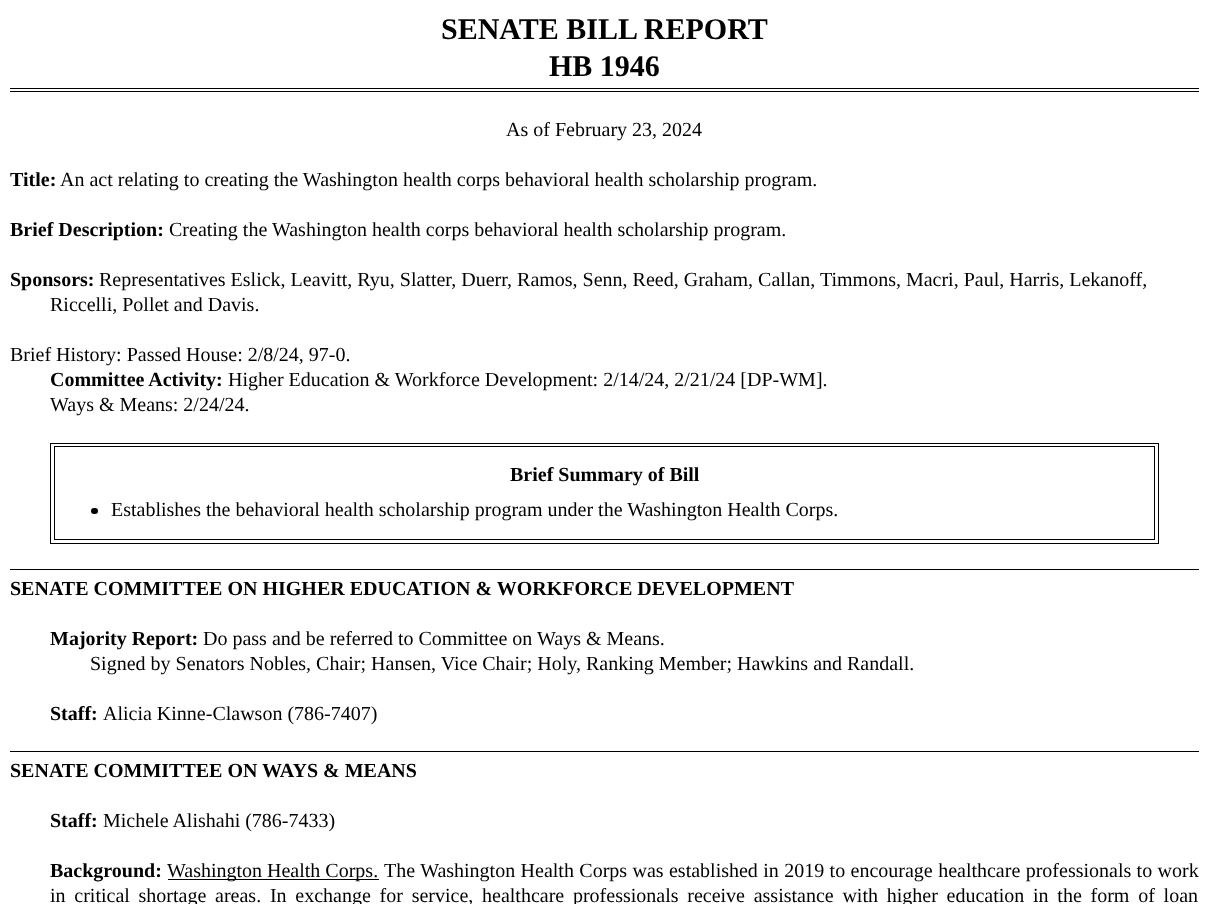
<!DOCTYPE html>
<meta charset="utf-8">
<style>body { margin: 0 } canvas { display: block }</style>
<canvas id="canvas" width="1208" height="904"></canvas>
<script type="module">
  const canvas = document.getElementById("canvas");
  const g = canvas.getContext("2d");
  g.miterLimit = 4;
  g.fontKerning = "normal";
  function drawText(s, x, y, [font, color]) {
    g.font = font;
    g.fillStyle = color;
    g.fillText(s, x, y);
  }
  function fillBox(x, y, w, h, color) {
    g.fillStyle = color;
    g.fillRect(x, y, w, h);
  }
  function fillRounded(x, y, w, h, r, color) {
    g.fillStyle = color;
    g.beginPath();
    g.roundRect(x, y, w, h, r);
    g.fill();
  }

  const s1 = ["bold 30px Liberation Serif", "#000000"];
  const s2 = ["20px Liberation Serif", "#000000"];
  const s3 = ["bold 20px Liberation Serif", "#000000"];

  fillBox(0, 0, 1208, 904, "#FFFFFF");
  fillBox(10, 91, 1189, 1, "#000000");
  drawText("SENATE BILL REPORT", 441, 39, s1);
  drawText("HB 1946", 549, 76, s1);
  fillBox(10, 88, 1189, 1, "#000000");
  drawText("As of February 23, 2024", 506, 136, s2);
  drawText("Title:", 10, 186, s3);
  drawText("An act relating to creating the Washington health corps behavioral health scholarship program.", 60, 186, s2);
  drawText("Brief Description:", 10, 236, s3);
  drawText("Creating the Washington health corps behavioral health scholarship program.", 169, 236, s2);
  drawText("Sponsors:", 10, 286, s3);
  drawText("Representatives Eslick, Leavitt, Ryu, Slatter, Duerr, Ramos, Senn, Reed, Graham, Callan, Timmons, Macri, Paul, Harris, Lekanoff,", 99, 286, s2);
  drawText("Riccelli, Pollet and Davis.", 50, 311, s2);
  drawText("Brief History: Passed House: 2/8/24, 97-0.", 10, 361, s2);
  drawText("Committee Activity:", 50, 386, s3);
  drawText("Higher Education & Workforce Development: 2/14/24, 2/21/24 [DP-WM].", 228, 386, s2);
  drawText("Ways & Means: 2/24/24.", 50, 411, s2);
  fillBox(1158, 443, 1, 101, "#000000");
  fillBox(50, 443, 1, 101, "#000000");
  fillBox(51, 443, 1107, 1, "#000000");
  fillBox(1154, 446, 1, 94, "#000000");
  fillBox(54, 446, 1, 94, "#000000");
  fillBox(55, 446, 1099, 1, "#000000");
  drawText("Brief Summary of Bill", 510, 481, s3);
  fillRounded(91, 508, 7, 6, 3, "#000000");
  drawText("Establishes the behavioral health scholarship program under the Washington Health Corps.", 111, 516, s2);
  fillBox(55, 539, 1099, 1, "#000000");
  fillBox(51, 543, 1107, 1, "#000000");
  fillBox(10, 569, 1189, 1, "#000000");
  drawText("SENATE COMMITTEE ON HIGHER EDUCATION & WORKFORCE DEVELOPMENT", 10, 595, s3);
  drawText("Majority Report:", 50, 645, s3);
  drawText("Do pass and be referred to Committee on Ways & Means.", 203, 645, s2);
  drawText("Signed by Senators Nobles, Chair; Hansen, Vice Chair; Holy, Ranking Member; Hawkins and Randall.", 90, 670, s2);
  drawText("Staff:", 50, 720, s3);
  drawText("Alicia Kinne-Clawson (786-7407)", 103, 720, s2);
  fillBox(10, 751, 1189, 1, "#000000");
  drawText("SENATE COMMITTEE ON WAYS & MEANS", 10, 777, s3);
  drawText("Staff:", 50, 827, s3);
  drawText("Michele Alishahi (786-7433)", 103, 827, s2);
  drawText("Background:", 50, 877, s3);
  fillBox(168, 879, 211, 1, "#000000");
  drawText("Washington Health Corps.", 167, 877, s2);
  g.wordSpacing = "0.4px";
  drawText("The Washington Health Corps was established in 2019 to encourage healthcare professionals to work", 384, 877, s2);
  g.wordSpacing = "3.75px";
  drawText("in critical shortage areas. In exchange for service, healthcare professionals receive assistance with higher education in the form of loan", 50, 902, s2);
</script>
